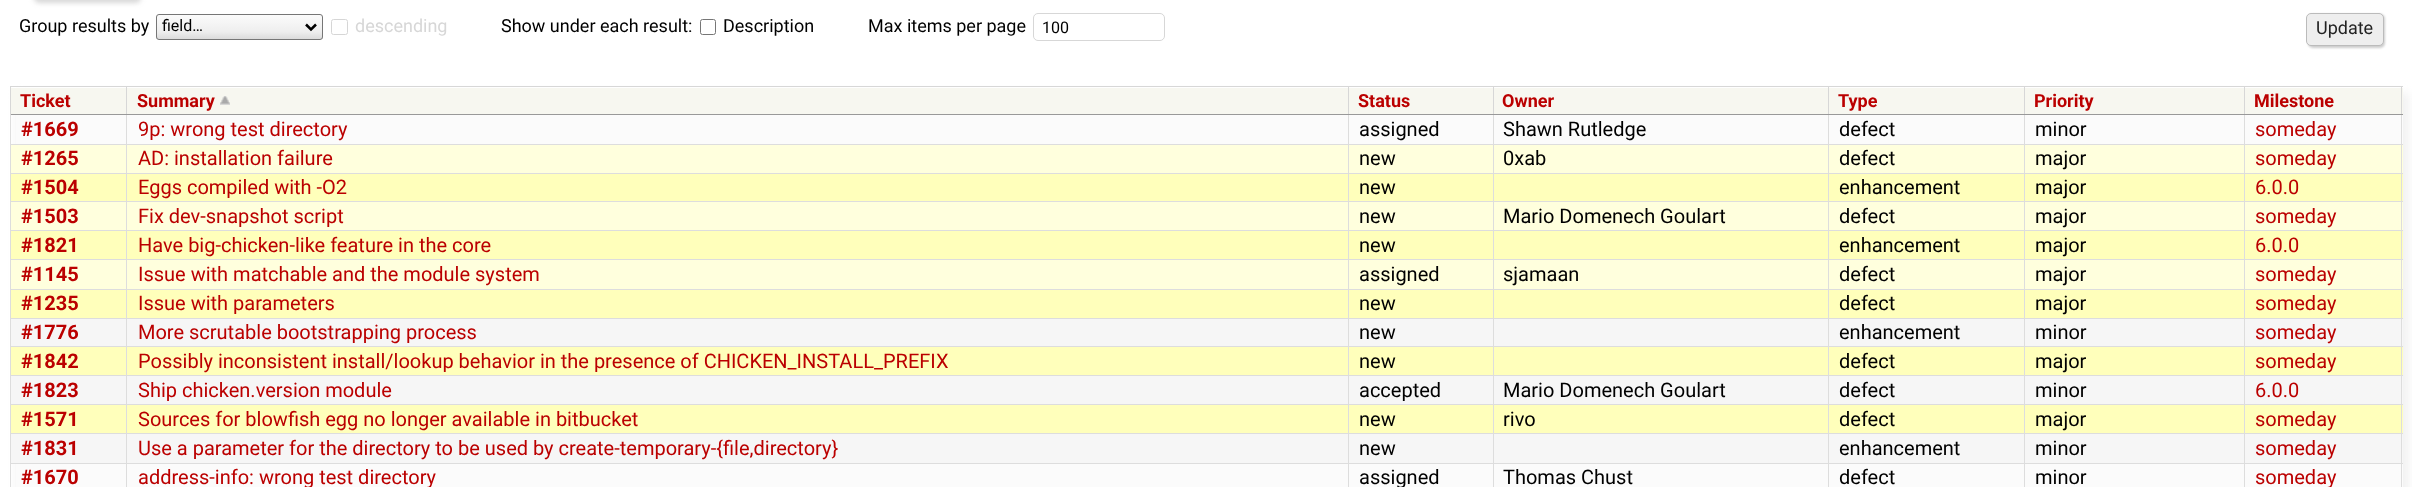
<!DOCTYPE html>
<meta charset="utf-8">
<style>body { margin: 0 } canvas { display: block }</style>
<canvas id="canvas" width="2412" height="487"></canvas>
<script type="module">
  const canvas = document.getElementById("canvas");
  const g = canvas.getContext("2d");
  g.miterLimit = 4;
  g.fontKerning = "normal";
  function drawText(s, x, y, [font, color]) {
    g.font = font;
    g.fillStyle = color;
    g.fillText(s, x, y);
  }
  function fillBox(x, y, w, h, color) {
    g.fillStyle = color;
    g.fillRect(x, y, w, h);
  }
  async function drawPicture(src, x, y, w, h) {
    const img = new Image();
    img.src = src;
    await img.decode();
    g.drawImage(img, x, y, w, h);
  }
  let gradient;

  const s1 = ["18px Roboto", "#000000"];
  const s2 = ["16px Roboto", "#000000"];
  const s3 = ["18px Roboto", "#D7D7D7"];
  const s4 = ["18px Roboto", "#222222"];
  const s5 = ["bold 18px Roboto", "#BB0000"];
  const s6 = ["bold 20px Roboto", "#BB0000"];
  const s7 = ["20px Roboto", "#BB0000"];
  const s8 = ["20px Roboto", "#000000"];

  fillBox(0, 0, 2412, 487, "#FFFFFF");
  g.fillStyle = "#D7D7D7";
  g.filter = "blur(2.5px)";
  g.beginPath();
  g.roundRect(34, -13, 107, 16, 5);
  g.fill();
  g.filter = "none";
  drawText("Group results by", 19, 32, s1);
  g.save();
  g.beginPath();
  g.roundRect(156, 14, 167, 26, 3);
  g.clip();
  gradient = g.createLinearGradient(239, 39, 239, 15);
  gradient.addColorStop(0, "#DBDBDB");
  gradient.addColorStop(0.3, "#EEEEEE");
  gradient.addColorStop(1, "#FBFBFB");
  g.fillStyle = gradient;
  g.fillRect(156, 15, 167, 24);
  g.restore();
  g.beginPath();
  g.roundRect(156.5, 14.5, 166, 25, 2.5);
  g.strokeStyle = "#767676";
  g.stroke();
  g.beginPath();
  g.moveTo(306, 24.5);
  g.lineTo(311, 29.5);
  g.lineTo(316, 24.5);
  g.strokeStyle = "#000000";
  g.lineWidth = 2.5;
  g.stroke();
  drawText("field…", 162, 31, s2);
  g.beginPath();
  g.roundRect(331.5, 19.5, 16, 15, 2);
  g.strokeStyle = "#D6D6D6";
  g.lineWidth = 1;
  g.stroke();
  drawText("descending", 355, 32, s3);
  drawText("Show under each result:", 501, 32, s1);
  g.beginPath();
  g.roundRect(700.5, 19.5, 15, 15, 2);
  g.strokeStyle = "#767676";
  g.stroke();
  drawText("Description", 723, 32, s1);
  drawText("Max items per page", 868, 32, s1);
  g.beginPath();
  g.roundRect(1033.5, 13.5, 131, 27, 4.5);
  g.strokeStyle = "#D7D7D7";
  g.stroke();
  drawText("100", 1042, 33, s2);
  g.fillStyle = "#CCCCCC";
  g.filter = "blur(1px)";
  g.beginPath();
  g.roundRect(2308, 14, 77, 34, 5);
  g.fill();
  g.filter = "none";
  g.fillStyle = "#EEEEEE";
  g.beginPath();
  g.roundRect(2306.5, 13.5, 77, 32, 4.5);
  g.fill();
  g.strokeStyle = "#BBBBBB";
  g.stroke();
  drawText("Update", 2316, 34, s4);
  g.fillStyle = "#F2F2F2";
  g.filter = "blur(4px)";
  g.beginPath();
  g.rect(16, 93, 2393, 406);
  g.fill();
  g.filter = "none";
  fillBox(11, 88, 2392, 26, "#F7F7F0");
  fillBox(2244, 86, 159, 1, "#D7D7D7");
  fillBox(16, 115, 2387, 29, "#FBFBFB");
  fillBox(10, 144, 2393, 1, "#DDDDDD");
  fillBox(11, 145, 2392, 28, "#FFFFDD");
  fillBox(11, 174, 2392, 27, "#FFFFBB");
  fillBox(2244, 173, 159, 1, "#DDDDDD");
  fillBox(11, 202, 2392, 28, "#FFFFDD");
  fillBox(2244, 201, 159, 1, "#DDDDDD");
  fillBox(2244, 230, 159, 1, "#DDDDDD");
  fillBox(11, 231, 2392, 28, "#FFFFBB");
  fillBox(2244, 259, 159, 1, "#DDDDDD");
  fillBox(11, 260, 2392, 29, "#FFFFDD");
  fillBox(2244, 289, 159, 1, "#DDDDDD");
  fillBox(11, 290, 2392, 28, "#FFFFBB");
  fillBox(2244, 318, 159, 1, "#DDDDDD");
  fillBox(11, 319, 2392, 27, "#F6F6F6");
  fillBox(11, 347, 2392, 28, "#FFFFBB");
  fillBox(2244, 346, 159, 1, "#DDDDDD");
  fillBox(2244, 375, 159, 1, "#DDDDDD");
  fillBox(11, 376, 2392, 28, "#F6F6F6");
  fillBox(2244, 404, 159, 1, "#DDDDDD");
  fillBox(11, 405, 2392, 28, "#FFFFBB");
  fillBox(2244, 433, 159, 1, "#DDDDDD");
  fillBox(11, 434, 2392, 29, "#F6F6F6");
  fillBox(2244, 463, 159, 1, "#DDDDDD");
  fillBox(16, 464, 2387, 23, "#FBFBFB");
  fillBox(2401, 463, 1, 24, "#DDDDDD");
  fillBox(2401, 433, 1, 31, "#DDDDDD");
  fillBox(2401, 404, 1, 30, "#DDDDDD");
  fillBox(2401, 375, 1, 30, "#DDDDDD");
  fillBox(2401, 346, 1, 30, "#DDDDDD");
  fillBox(2401, 318, 1, 30, "#DDDDDD");
  fillBox(2401, 289, 1, 30, "#DDDDDD");
  fillBox(2401, 259, 1, 31, "#DDDDDD");
  fillBox(2401, 230, 1, 30, "#DDDDDD");
  fillBox(2401, 201, 1, 30, "#DDDDDD");
  fillBox(2401, 114, 1, 89, "#DDDDDD");
  fillBox(2401, 86, 1, 29, "#D7D7D7");
  fillBox(2244, 463, 1, 24, "#DDDDDD");
  fillBox(2024, 463, 221, 1, "#DDDDDD");
  fillBox(2244, 433, 1, 31, "#DDDDDD");
  fillBox(2024, 433, 221, 1, "#DDDDDD");
  fillBox(2244, 404, 1, 30, "#DDDDDD");
  fillBox(2024, 404, 221, 1, "#DDDDDD");
  fillBox(2244, 375, 1, 30, "#DDDDDD");
  fillBox(2024, 375, 221, 1, "#DDDDDD");
  fillBox(2244, 346, 1, 30, "#DDDDDD");
  fillBox(2024, 346, 221, 1, "#DDDDDD");
  fillBox(2244, 318, 1, 30, "#DDDDDD");
  fillBox(2024, 318, 221, 1, "#DDDDDD");
  fillBox(2244, 289, 1, 30, "#DDDDDD");
  fillBox(2024, 289, 221, 1, "#DDDDDD");
  fillBox(2244, 259, 1, 31, "#DDDDDD");
  fillBox(2024, 259, 221, 1, "#DDDDDD");
  fillBox(2244, 230, 1, 30, "#DDDDDD");
  fillBox(2024, 230, 221, 1, "#DDDDDD");
  fillBox(2244, 201, 1, 30, "#DDDDDD");
  fillBox(2024, 201, 221, 1, "#DDDDDD");
  fillBox(2244, 173, 1, 30, "#DDDDDD");
  fillBox(2024, 173, 221, 1, "#DDDDDD");
  fillBox(2244, 114, 1, 60, "#DDDDDD");
  fillBox(2244, 114, 159, 1, "#999999");
  fillBox(2244, 86, 1, 29, "#D7D7D7");
  fillBox(2024, 86, 221, 1, "#D7D7D7");
  fillBox(2024, 463, 1, 24, "#DDDDDD");
  fillBox(1828, 463, 197, 1, "#DDDDDD");
  fillBox(2024, 433, 1, 31, "#DDDDDD");
  fillBox(1828, 433, 197, 1, "#DDDDDD");
  fillBox(2024, 404, 1, 30, "#DDDDDD");
  fillBox(1828, 404, 197, 1, "#DDDDDD");
  fillBox(2024, 375, 1, 30, "#DDDDDD");
  fillBox(1828, 375, 197, 1, "#DDDDDD");
  fillBox(2024, 346, 1, 30, "#DDDDDD");
  fillBox(1828, 346, 197, 1, "#DDDDDD");
  fillBox(2024, 318, 1, 30, "#DDDDDD");
  fillBox(1828, 318, 197, 1, "#DDDDDD");
  fillBox(2024, 289, 1, 30, "#DDDDDD");
  fillBox(1828, 289, 197, 1, "#DDDDDD");
  fillBox(2024, 259, 1, 31, "#DDDDDD");
  fillBox(1828, 259, 197, 1, "#DDDDDD");
  fillBox(2024, 230, 1, 30, "#DDDDDD");
  fillBox(1828, 230, 197, 1, "#DDDDDD");
  fillBox(2024, 201, 1, 30, "#DDDDDD");
  fillBox(1828, 201, 197, 1, "#DDDDDD");
  fillBox(2024, 173, 1, 30, "#DDDDDD");
  fillBox(1828, 173, 197, 1, "#DDDDDD");
  fillBox(2024, 114, 1, 60, "#DDDDDD");
  fillBox(2024, 114, 221, 1, "#999999");
  fillBox(2024, 86, 1, 29, "#D7D7D7");
  fillBox(1828, 86, 197, 1, "#D7D7D7");
  fillBox(1828, 463, 1, 24, "#DDDDDD");
  fillBox(1493, 463, 336, 1, "#DDDDDD");
  fillBox(1828, 433, 1, 31, "#DDDDDD");
  fillBox(1493, 433, 336, 1, "#DDDDDD");
  fillBox(1828, 404, 1, 30, "#DDDDDD");
  fillBox(1493, 404, 336, 1, "#DDDDDD");
  fillBox(1828, 375, 1, 30, "#DDDDDD");
  fillBox(1493, 375, 336, 1, "#DDDDDD");
  fillBox(1828, 346, 1, 30, "#DDDDDD");
  fillBox(1493, 346, 336, 1, "#DDDDDD");
  fillBox(1828, 318, 1, 30, "#DDDDDD");
  fillBox(1493, 318, 336, 1, "#DDDDDD");
  fillBox(1828, 289, 1, 30, "#DDDDDD");
  fillBox(1493, 289, 336, 1, "#DDDDDD");
  fillBox(1828, 259, 1, 31, "#DDDDDD");
  fillBox(1493, 259, 336, 1, "#DDDDDD");
  fillBox(1828, 230, 1, 30, "#DDDDDD");
  fillBox(1493, 230, 336, 1, "#DDDDDD");
  fillBox(1828, 201, 1, 30, "#DDDDDD");
  fillBox(1493, 201, 336, 1, "#DDDDDD");
  fillBox(1828, 173, 1, 30, "#DDDDDD");
  fillBox(1493, 173, 336, 1, "#DDDDDD");
  fillBox(1828, 114, 1, 60, "#DDDDDD");
  fillBox(1828, 114, 197, 1, "#999999");
  fillBox(1828, 86, 1, 29, "#D7D7D7");
  fillBox(1493, 86, 336, 1, "#D7D7D7");
  fillBox(1493, 463, 1, 24, "#DDDDDD");
  fillBox(1348, 463, 146, 1, "#DDDDDD");
  fillBox(1493, 433, 1, 31, "#DDDDDD");
  fillBox(1348, 433, 146, 1, "#DDDDDD");
  fillBox(1493, 404, 1, 30, "#DDDDDD");
  fillBox(1348, 404, 146, 1, "#DDDDDD");
  fillBox(1493, 375, 1, 30, "#DDDDDD");
  fillBox(1348, 375, 146, 1, "#DDDDDD");
  fillBox(1493, 346, 1, 30, "#DDDDDD");
  fillBox(1348, 346, 146, 1, "#DDDDDD");
  fillBox(1493, 318, 1, 30, "#DDDDDD");
  fillBox(1348, 318, 146, 1, "#DDDDDD");
  fillBox(1493, 289, 1, 30, "#DDDDDD");
  fillBox(1348, 289, 146, 1, "#DDDDDD");
  fillBox(1493, 259, 1, 31, "#DDDDDD");
  fillBox(1348, 259, 146, 1, "#DDDDDD");
  fillBox(1493, 230, 1, 30, "#DDDDDD");
  fillBox(1348, 230, 146, 1, "#DDDDDD");
  fillBox(1493, 201, 1, 30, "#DDDDDD");
  fillBox(1348, 201, 146, 1, "#DDDDDD");
  fillBox(1493, 173, 1, 30, "#DDDDDD");
  fillBox(1348, 173, 146, 1, "#DDDDDD");
  fillBox(1493, 114, 1, 60, "#DDDDDD");
  fillBox(1493, 114, 336, 1, "#999999");
  fillBox(1493, 86, 1, 29, "#D7D7D7");
  fillBox(1348, 86, 146, 1, "#D7D7D7");
  fillBox(1348, 463, 1, 24, "#DDDDDD");
  fillBox(126, 463, 1223, 1, "#DDDDDD");
  fillBox(1348, 433, 1, 31, "#DDDDDD");
  fillBox(126, 433, 1223, 1, "#DDDDDD");
  fillBox(1348, 404, 1, 30, "#DDDDDD");
  fillBox(126, 404, 1223, 1, "#DDDDDD");
  fillBox(1348, 375, 1, 30, "#DDDDDD");
  fillBox(126, 375, 1223, 1, "#DDDDDD");
  fillBox(1348, 346, 1, 30, "#DDDDDD");
  fillBox(126, 346, 1223, 1, "#DDDDDD");
  fillBox(1348, 318, 1, 30, "#DDDDDD");
  fillBox(126, 318, 1223, 1, "#DDDDDD");
  fillBox(1348, 289, 1, 30, "#DDDDDD");
  fillBox(126, 289, 1223, 1, "#DDDDDD");
  fillBox(1348, 259, 1, 31, "#DDDDDD");
  fillBox(126, 259, 1223, 1, "#DDDDDD");
  fillBox(1348, 230, 1, 30, "#DDDDDD");
  fillBox(126, 230, 1223, 1, "#DDDDDD");
  fillBox(1348, 201, 1, 30, "#DDDDDD");
  fillBox(126, 201, 1223, 1, "#DDDDDD");
  fillBox(1348, 173, 1, 30, "#DDDDDD");
  fillBox(126, 173, 1223, 1, "#DDDDDD");
  fillBox(1348, 114, 1, 60, "#DDDDDD");
  fillBox(1348, 114, 146, 1, "#999999");
  fillBox(1348, 86, 1, 29, "#D7D7D7");
  fillBox(126, 86, 1223, 1, "#D7D7D7");
  fillBox(126, 463, 1, 24, "#DDDDDD");
  fillBox(10, 463, 118, 1, "#DDDDDD");
  fillBox(126, 433, 1, 31, "#DDDDDD");
  fillBox(10, 433, 118, 1, "#DDDDDD");
  fillBox(126, 404, 1, 30, "#DDDDDD");
  fillBox(10, 404, 118, 1, "#DDDDDD");
  fillBox(126, 375, 1, 30, "#DDDDDD");
  fillBox(10, 375, 118, 1, "#DDDDDD");
  fillBox(126, 346, 1, 30, "#DDDDDD");
  fillBox(10, 346, 118, 1, "#DDDDDD");
  fillBox(126, 318, 1, 30, "#DDDDDD");
  fillBox(10, 318, 118, 1, "#DDDDDD");
  fillBox(126, 289, 1, 30, "#DDDDDD");
  fillBox(10, 289, 118, 1, "#DDDDDD");
  fillBox(126, 259, 1, 31, "#DDDDDD");
  fillBox(10, 259, 118, 1, "#DDDDDD");
  fillBox(126, 230, 1, 30, "#DDDDDD");
  fillBox(10, 230, 118, 1, "#DDDDDD");
  fillBox(126, 201, 1, 30, "#DDDDDD");
  fillBox(10, 201, 118, 1, "#DDDDDD");
  fillBox(126, 173, 1, 30, "#DDDDDD");
  fillBox(10, 173, 118, 1, "#DDDDDD");
  fillBox(126, 114, 1, 60, "#DDDDDD");
  fillBox(126, 114, 1223, 1, "#999999");
  fillBox(126, 86, 1, 29, "#D7D7D7");
  fillBox(10, 86, 118, 1, "#D7D7D7");
  fillBox(10, 463, 1, 24, "#DDDDDD");
  fillBox(10, 433, 1, 31, "#DDDDDD");
  fillBox(10, 404, 1, 30, "#DDDDDD");
  fillBox(10, 375, 1, 30, "#DDDDDD");
  fillBox(10, 346, 1, 30, "#DDDDDD");
  fillBox(10, 318, 1, 30, "#DDDDDD");
  fillBox(10, 289, 1, 30, "#DDDDDD");
  fillBox(10, 259, 1, 31, "#DDDDDD");
  fillBox(10, 230, 1, 30, "#DDDDDD");
  fillBox(10, 201, 1, 30, "#DDDDDD");
  fillBox(10, 114, 1, 89, "#DDDDDD");
  fillBox(10, 114, 118, 1, "#999999");
  fillBox(10, 86, 1, 29, "#D7D7D7");
  drawText("Ticket", 20, 107, s5);
  drawText("Summary", 137, 107, s5);
  await drawPicture("pic1.png", 220, 96, 10, 9);
  drawText("Status", 1358, 107, s5);
  drawText("Owner", 1502, 107, s5);
  drawText("Type", 1838, 107, s5);
  drawText("Priority", 2034, 107, s5);
  drawText("Milestone", 2254, 107, s5);
  drawText("#1669", 21, 136, s6);
  drawText("9p: wrong test directory", 138, 136, s7);
  drawText("assigned", 1359, 136, s8);
  drawText("Shawn Rutledge", 1503, 136, s8);
  drawText("defect", 1839, 136, s8);
  drawText("minor", 2035, 136, s8);
  drawText("someday", 2255, 136, s7);
  drawText("#1265", 21, 165, s6);
  drawText("AD: installation failure", 138, 165, s7);
  drawText("new", 1359, 165, s8);
  drawText("0xab", 1503, 165, s8);
  drawText("defect", 1839, 165, s8);
  drawText("major", 2035, 165, s8);
  drawText("someday", 2255, 165, s7);
  drawText("#1504", 21, 194, s6);
  drawText("Eggs compiled with -O2", 138, 194, s7);
  drawText("new", 1359, 194, s8);
  drawText("enhancement", 1839, 194, s8);
  drawText("major", 2035, 194, s8);
  drawText("6.0.0", 2255, 194, s7);
  drawText("#1503", 21, 223, s6);
  drawText("Fix dev-snapshot script", 138, 223, s7);
  drawText("new", 1359, 223, s8);
  drawText("Mario Domenech Goulart", 1503, 223, s8);
  drawText("defect", 1839, 223, s8);
  drawText("major", 2035, 223, s8);
  drawText("someday", 2255, 223, s7);
  drawText("#1821", 21, 252, s6);
  drawText("Have big-chicken-like feature in the core", 138, 252, s7);
  drawText("new", 1359, 252, s8);
  drawText("enhancement", 1839, 252, s8);
  drawText("major", 2035, 252, s8);
  drawText("6.0.0", 2255, 252, s7);
  drawText("#1145", 21, 281, s6);
  drawText("Issue with matchable and the module system", 138, 281, s7);
  drawText("assigned", 1359, 281, s8);
  drawText("sjamaan", 1503, 281, s8);
  drawText("defect", 1839, 281, s8);
  drawText("major", 2035, 281, s8);
  drawText("someday", 2255, 281, s7);
  drawText("#1235", 21, 310, s6);
  drawText("Issue with parameters", 138, 310, s7);
  drawText("new", 1359, 310, s8);
  drawText("defect", 1839, 310, s8);
  drawText("major", 2035, 310, s8);
  drawText("someday", 2255, 310, s7);
  drawText("#1776", 21, 339, s6);
  drawText("More scrutable bootstrapping process", 138, 339, s7);
  drawText("new", 1359, 339, s8);
  drawText("enhancement", 1839, 339, s8);
  drawText("minor", 2035, 339, s8);
  drawText("someday", 2255, 339, s7);
  drawText("#1842", 21, 368, s6);
  drawText("Possibly inconsistent install/lookup behavior in the presence of CHICKEN_INSTALL_PREFIX", 138, 368, s7);
  drawText("new", 1359, 368, s8);
  drawText("defect", 1839, 368, s8);
  drawText("major", 2035, 368, s8);
  drawText("someday", 2255, 368, s7);
  drawText("#1823", 21, 397, s6);
  drawText("Ship chicken.version module", 138, 397, s7);
  drawText("accepted", 1359, 397, s8);
  drawText("Mario Domenech Goulart", 1503, 397, s8);
  drawText("defect", 1839, 397, s8);
  drawText("minor", 2035, 397, s8);
  drawText("6.0.0", 2255, 397, s7);
  drawText("#1571", 21, 426, s6);
  drawText("Sources for blowfish egg no longer available in bitbucket", 138, 426, s7);
  drawText("new", 1359, 426, s8);
  drawText("rivo", 1503, 426, s8);
  drawText("defect", 1839, 426, s8);
  drawText("major", 2035, 426, s8);
  drawText("someday", 2255, 426, s7);
  drawText("#1831", 21, 455, s6);
  drawText("Use a parameter for the directory to be used by create-temporary-{file,directory}", 138, 455, s7);
  drawText("new", 1359, 455, s8);
  drawText("enhancement", 1839, 455, s8);
  drawText("minor", 2035, 455, s8);
  drawText("someday", 2255, 455, s7);
  drawText("#1670", 21, 484, s6);
  drawText("address-info: wrong test directory", 138, 484, s7);
  drawText("assigned", 1359, 484, s8);
  drawText("Thomas Chust", 1503, 484, s8);
  drawText("defect", 1839, 484, s8);
  drawText("minor", 2035, 484, s8);
  drawText("someday", 2255, 484, s7);
</script>
